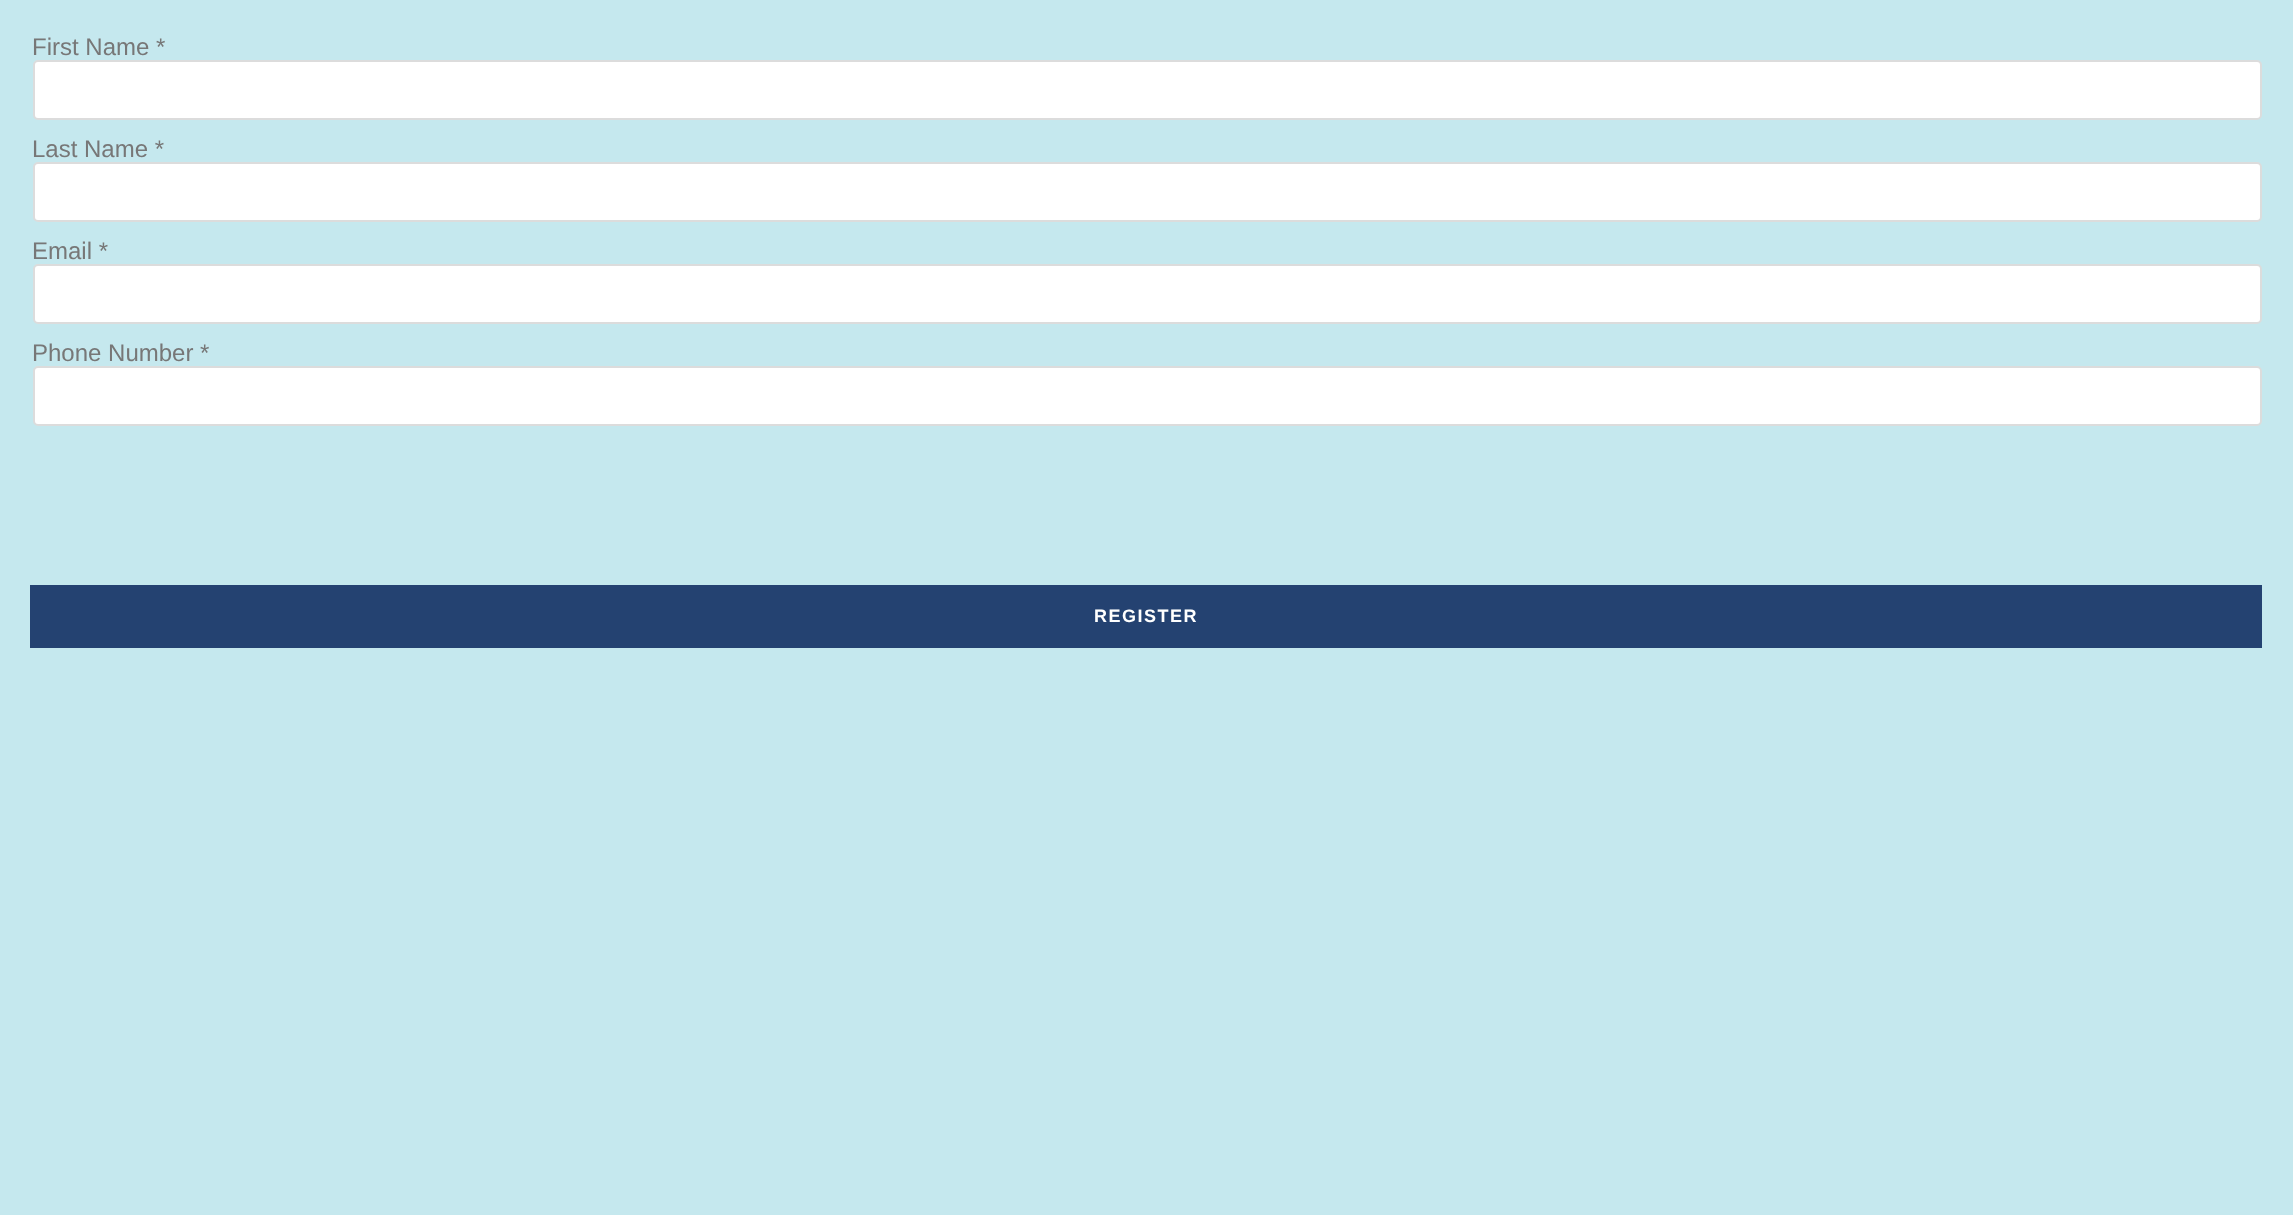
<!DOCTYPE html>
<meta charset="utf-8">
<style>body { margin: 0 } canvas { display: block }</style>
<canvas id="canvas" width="2293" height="1215"></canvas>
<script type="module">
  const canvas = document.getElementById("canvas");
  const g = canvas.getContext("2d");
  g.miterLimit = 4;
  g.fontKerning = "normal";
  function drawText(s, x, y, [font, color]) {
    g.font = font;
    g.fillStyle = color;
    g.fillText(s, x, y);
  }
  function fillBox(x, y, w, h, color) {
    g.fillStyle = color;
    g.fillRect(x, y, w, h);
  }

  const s1 = ["24px Liberation Sans", "#777777"];
  const s2 = ["bold 18px Liberation Sans", "#FFFFFF"];

  fillBox(0, 0, 2293, 1215, "#C5E8EE");
  drawText("First Name *", 32, 55, s1);
  g.fillStyle = "#FFFFFF";
  g.beginPath();
  g.roundRect(34, 61, 2227, 58, 4);
  g.fill();
  g.strokeStyle = "#DCDCDC";
  g.lineWidth = 2;
  g.stroke();
  drawText("Last Name *", 32, 157, s1);
  g.fillStyle = "#FFFFFF";
  g.beginPath();
  g.roundRect(34, 163, 2227, 58, 4);
  g.fill();
  g.stroke();
  drawText("Email *", 32, 259, s1);
  g.fillStyle = "#FFFFFF";
  g.beginPath();
  g.roundRect(34, 265, 2227, 58, 4);
  g.fill();
  g.stroke();
  drawText("Phone Number *", 32, 361, s1);
  g.fillStyle = "#FFFFFF";
  g.beginPath();
  g.roundRect(34, 367, 2227, 58, 4);
  g.fill();
  g.stroke();
  fillBox(30, 585, 2232, 63, "#244271");
  g.letterSpacing = "1.5px";
  drawText("REGISTER", 1094, 622, s2);
</script>
